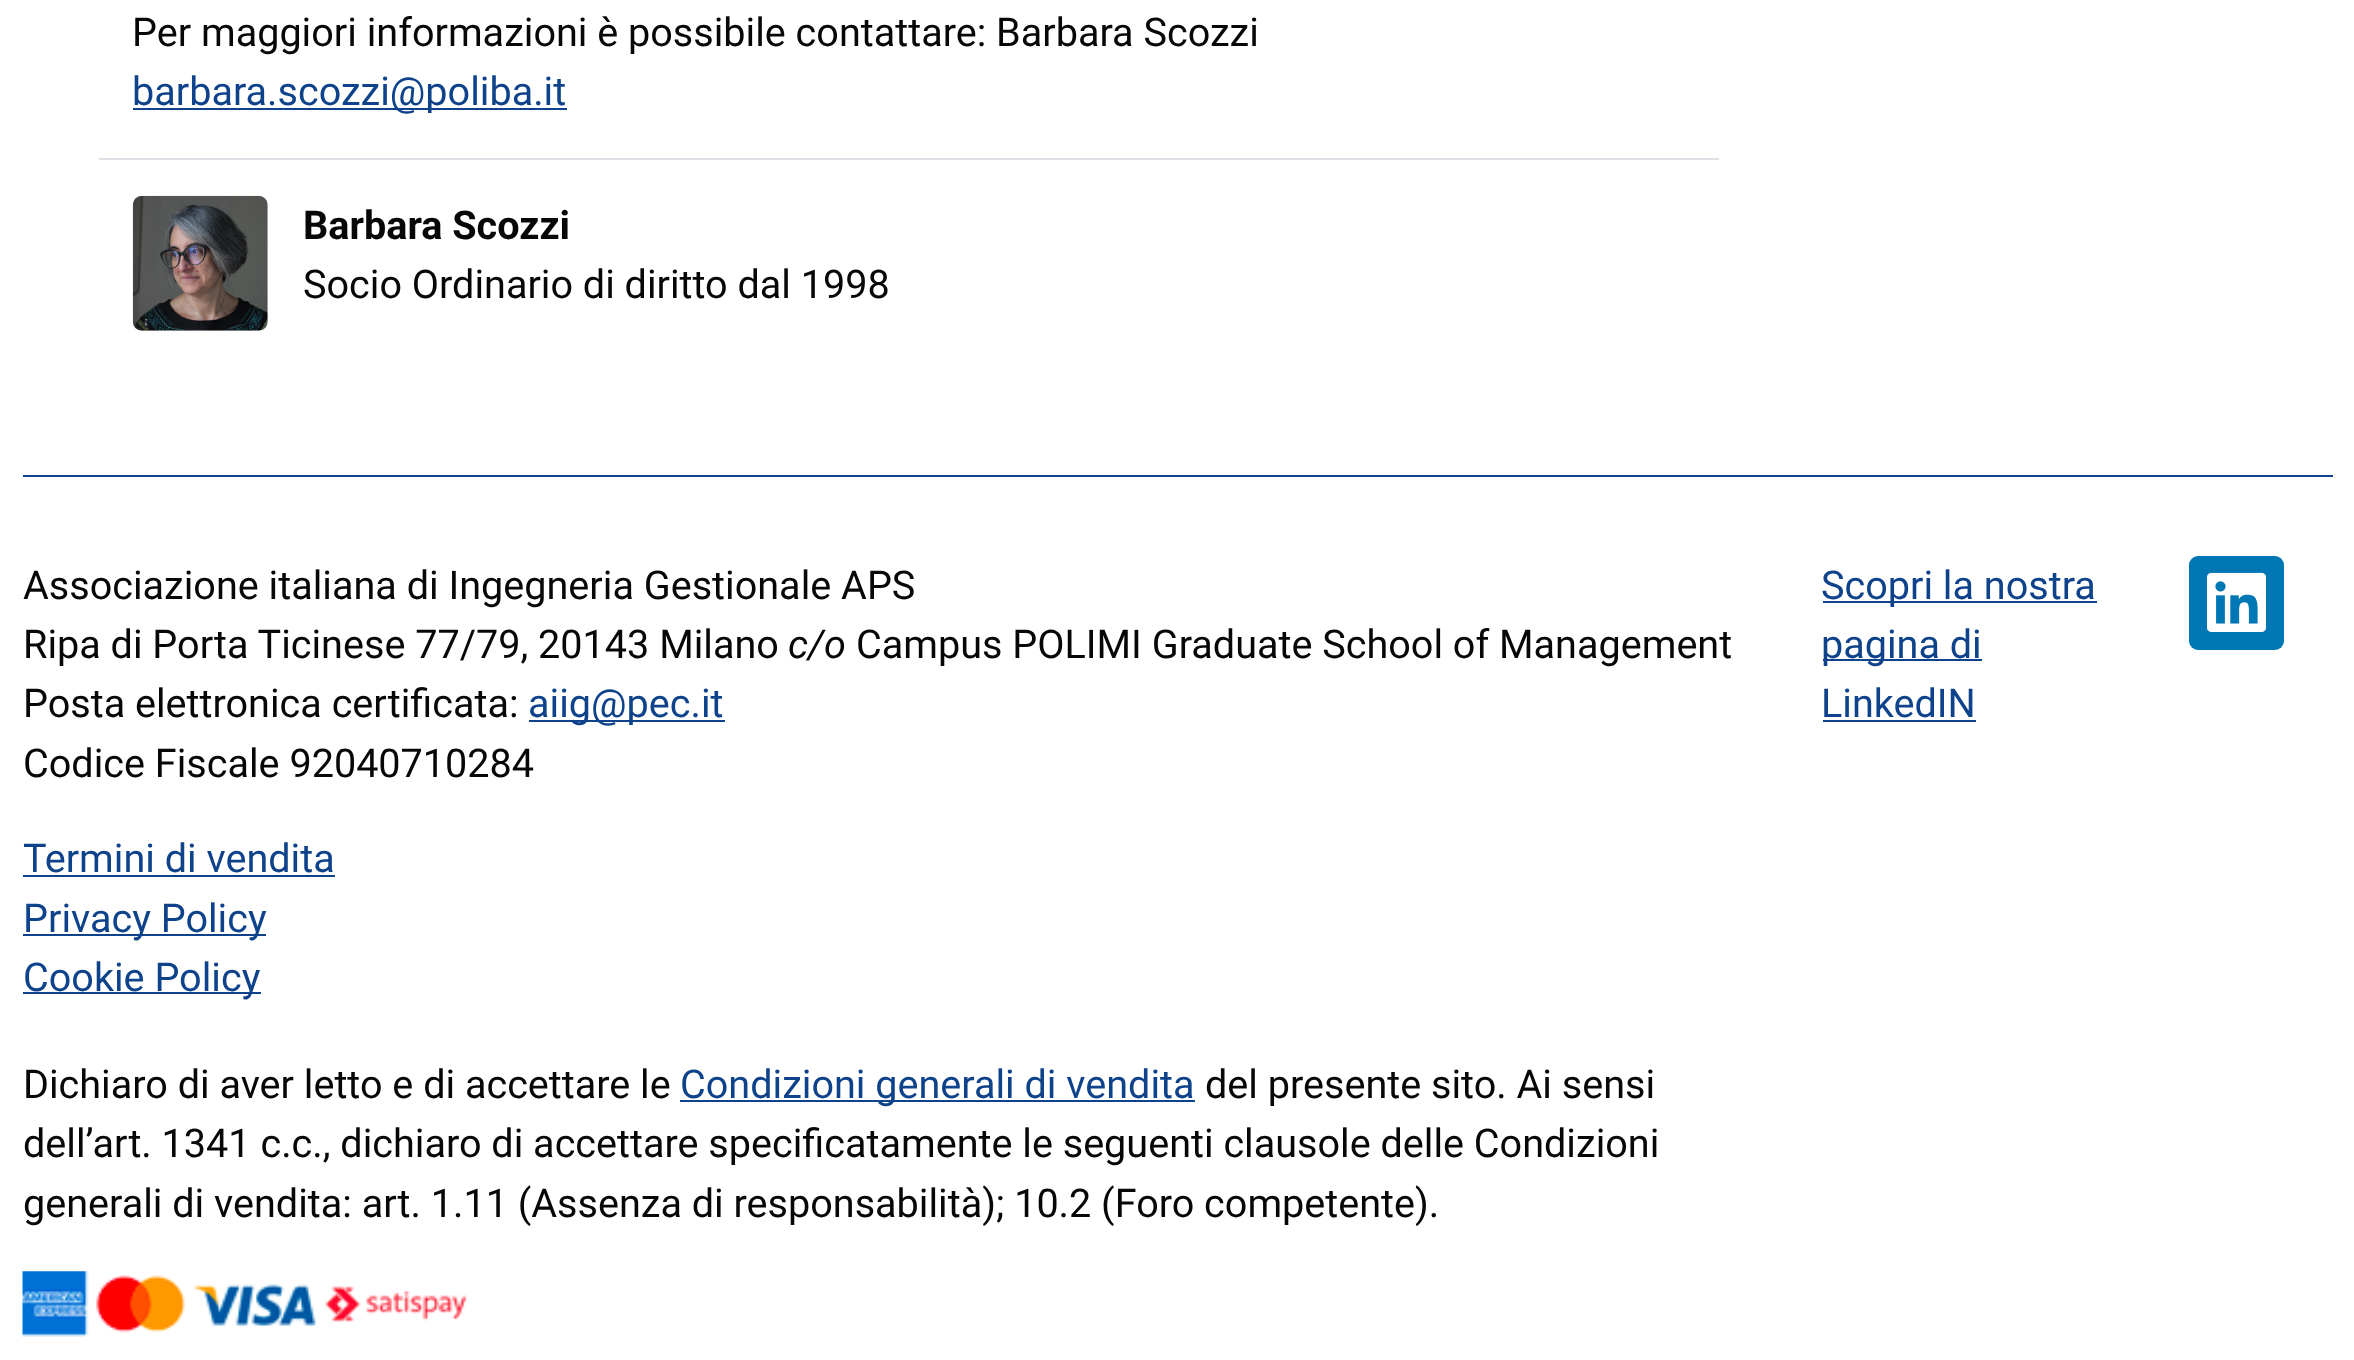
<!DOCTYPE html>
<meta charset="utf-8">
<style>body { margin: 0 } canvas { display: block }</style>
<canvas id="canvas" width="2354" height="1360"></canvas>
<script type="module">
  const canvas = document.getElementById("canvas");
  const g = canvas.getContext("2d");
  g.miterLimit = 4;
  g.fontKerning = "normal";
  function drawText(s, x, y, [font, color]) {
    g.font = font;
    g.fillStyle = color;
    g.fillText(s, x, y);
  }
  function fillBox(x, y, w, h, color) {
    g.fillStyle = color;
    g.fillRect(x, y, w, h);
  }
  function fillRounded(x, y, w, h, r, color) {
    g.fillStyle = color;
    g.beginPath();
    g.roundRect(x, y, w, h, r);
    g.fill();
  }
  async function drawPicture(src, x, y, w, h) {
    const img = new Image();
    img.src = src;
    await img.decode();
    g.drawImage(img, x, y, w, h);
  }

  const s1 = ["39.6px Roboto", "#070707"];
  const s2 = ["39.6px Roboto", "#0E438B"];
  const s3 = ["bold 39.6px Roboto", "#070707"];
  const s4 = ["italic 39.6px Roboto", "#070707"];

  fillBox(0, 0, 2354, 1360, "#FFFFFF");
  drawText("Per maggiori informazioni è possibile contattare: Barbara Scozzi", 132, 46, s1);
  fillBox(133, 108, 434, 2, "#0E438B");
  drawText("barbara.scozzi@poliba.it", 132, 105, s2);
  fillBox(99, 158, 1620, 2, "#DEE2E6");
  await drawPicture("pic1.png", 132, 195, 136, 136);
  drawText("Barbara Scozzi", 303, 239, s3);
  drawText("Socio Ordinario di diritto dal 1998", 303, 298, s1);
  fillBox(23, 475, 2310, 2, "#0E438B");
  drawText("Associazione italiana di Ingegneria Gestionale APS", 23, 599, s1);
  drawText("Ripa di Porta Ticinese 77/79, 20143 Milano", 23, 658, s1);
  drawText("c/o", 788, 658, s4);
  drawText("Campus POLIMI Graduate School of Management", 856, 658, s1);
  drawText("Posta elettronica certificata:", 23, 717, s1);
  fillBox(529, 720, 196, 2, "#0E438B");
  drawText("aiig@pec.it", 528, 717, s2);
  drawText("Codice Fiscale 92040710284", 23, 777, s1);
  drawText("Termini di vendita", 23, 872, s2);
  fillBox(23, 875, 312, 2, "#0E438B");
  fillBox(23, 934, 243, 2, "#0E438B");
  drawText("Privacy Policy", 23, 932, s2);
  fillBox(23, 992, 238, 2, "#0E438B");
  drawText("Cookie Policy", 23, 991, s2);
  drawText("Dichiaro di aver letto e di accettare le", 23, 1098, s1);
  fillBox(680, 1100, 515, 2, "#0E438B");
  drawText("Condizioni generali di vendita", 680, 1098, s2);
  drawText("del presente sito. Ai sensi", 1205, 1098, s1);
  drawText("dell’art. 1341 c.c., dichiaro di accettare specificatamente le seguenti clausole delle Condizioni", 23, 1157, s1);
  drawText("generali di vendita: art. 1.11 (Assenza di responsabilità); 10.2 (Foro competente).", 23, 1217, s1);
  await drawPicture("pic2.png", 22, 1271, 445, 66);
  fillBox(1823, 601, 274, 2, "#0E438B");
  drawText("Scopri la nostra", 1821, 599, s2);
  fillBox(1823, 659, 159, 2, "#0E438B");
  drawText("pagina di", 1821, 658, s2);
  drawText("LinkedIN", 1821, 717, s2);
  fillBox(1823, 720, 153, 2, "#0E438B");
  fillRounded(2189, 556, 95, 94, 9, "#0077B5");
  await drawPicture("pic3.png", 2206, 572, 61, 60);
</script>
